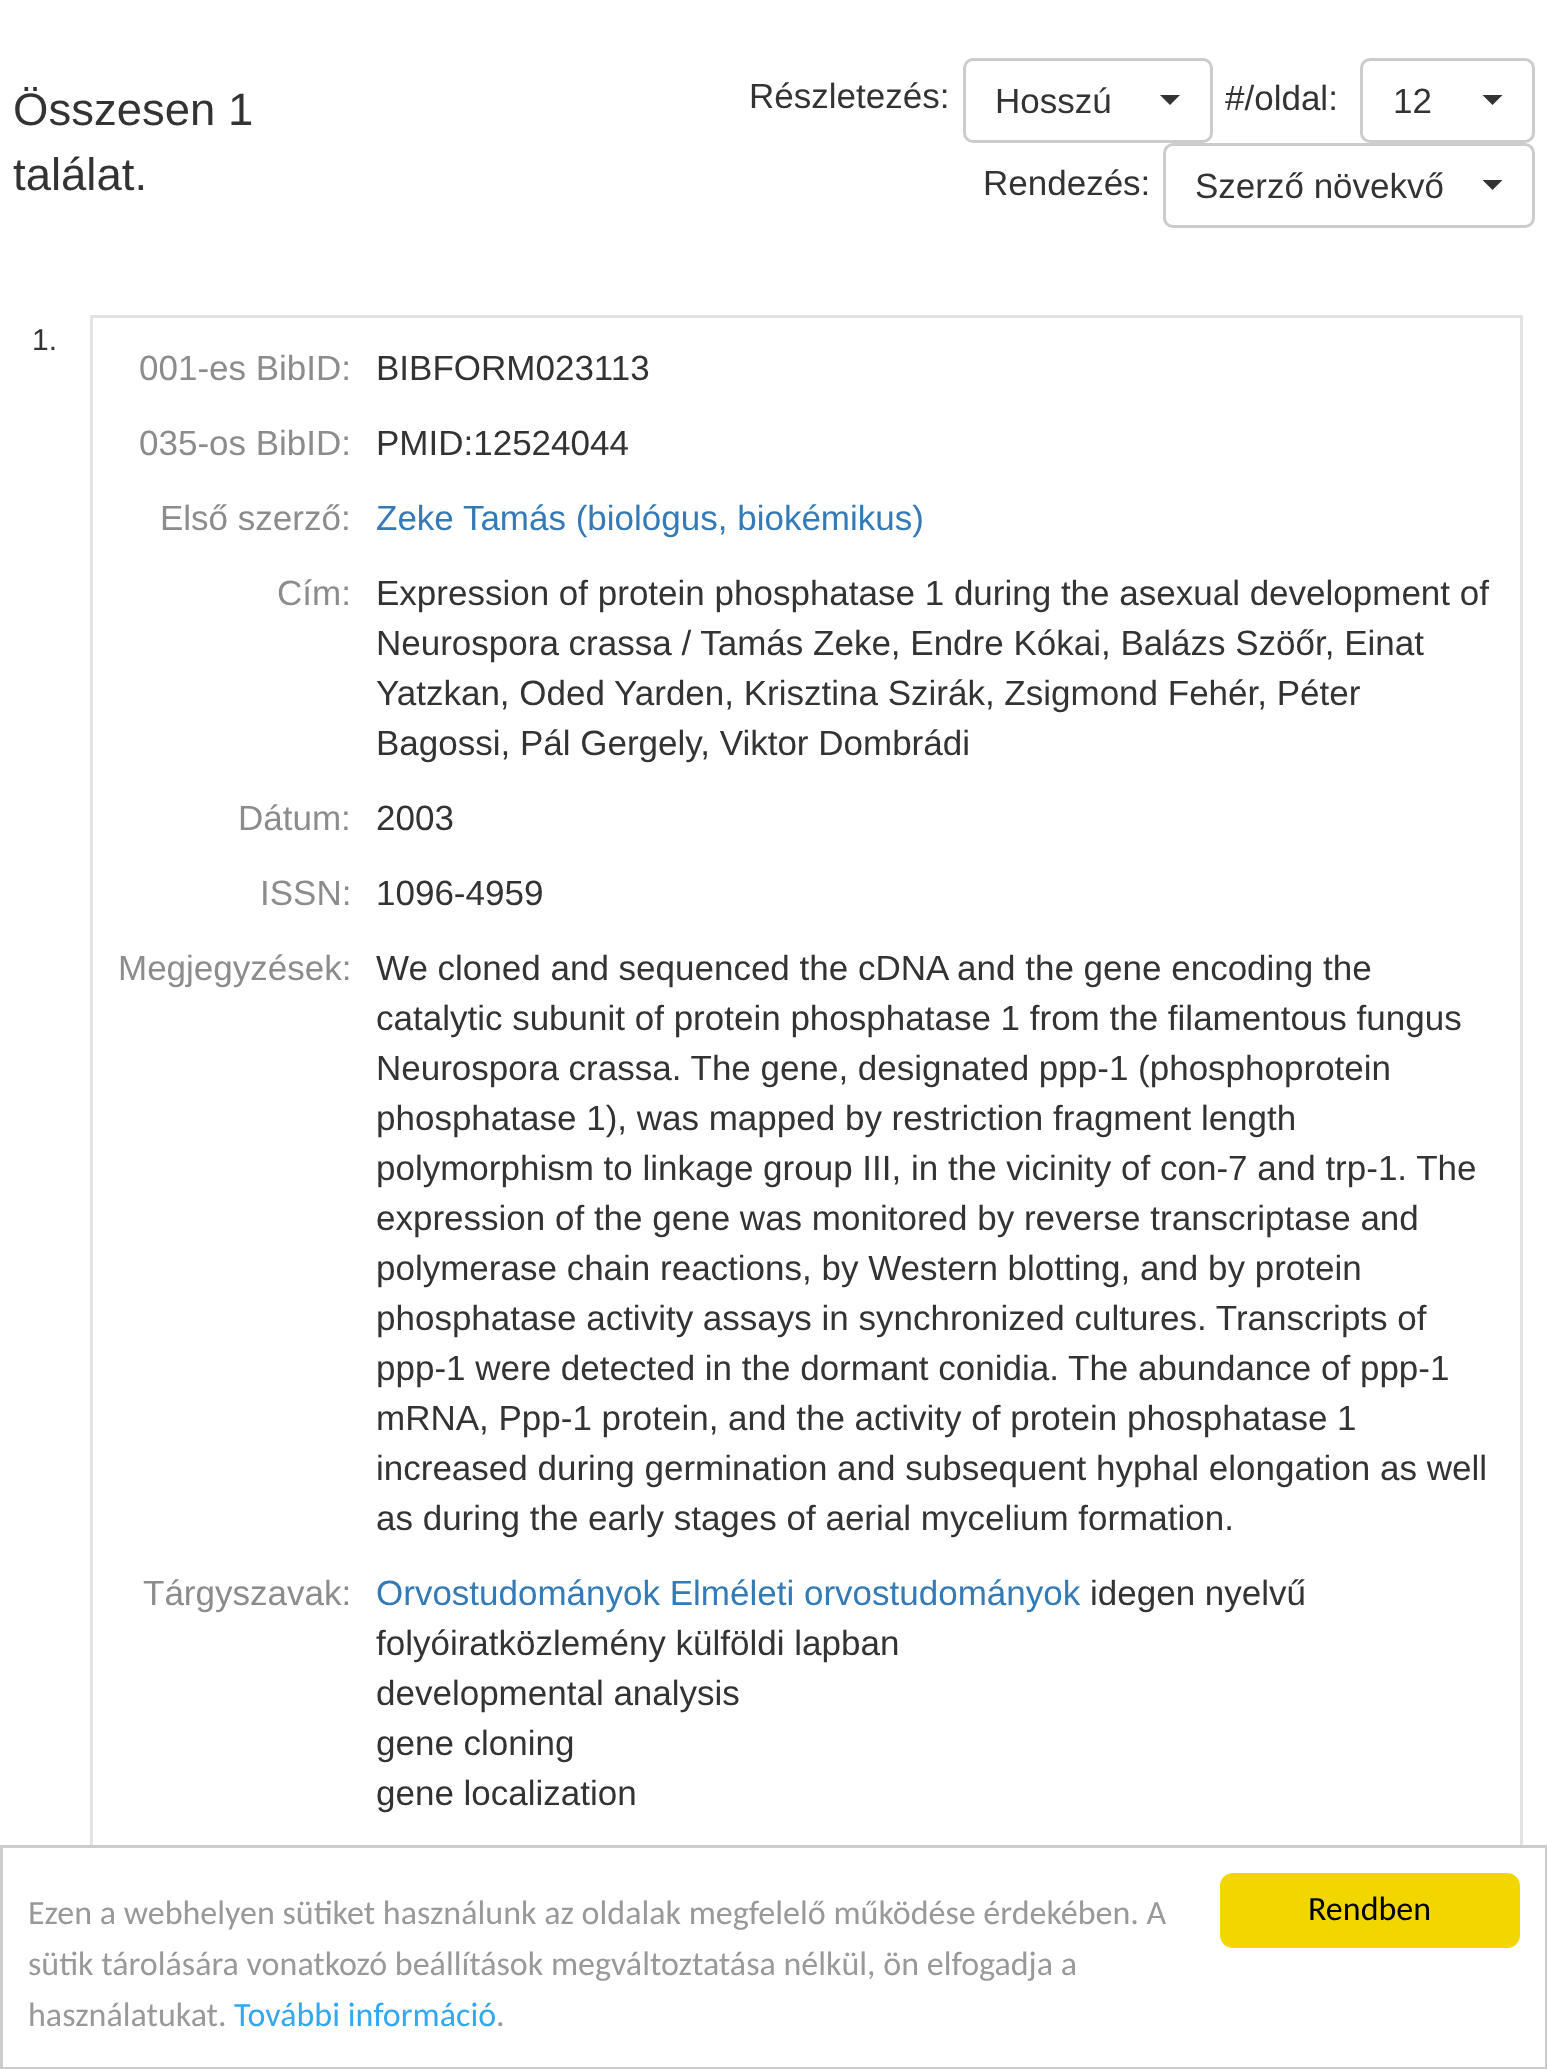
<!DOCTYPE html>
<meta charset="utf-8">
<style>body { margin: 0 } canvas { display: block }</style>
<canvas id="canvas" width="1547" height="2069"></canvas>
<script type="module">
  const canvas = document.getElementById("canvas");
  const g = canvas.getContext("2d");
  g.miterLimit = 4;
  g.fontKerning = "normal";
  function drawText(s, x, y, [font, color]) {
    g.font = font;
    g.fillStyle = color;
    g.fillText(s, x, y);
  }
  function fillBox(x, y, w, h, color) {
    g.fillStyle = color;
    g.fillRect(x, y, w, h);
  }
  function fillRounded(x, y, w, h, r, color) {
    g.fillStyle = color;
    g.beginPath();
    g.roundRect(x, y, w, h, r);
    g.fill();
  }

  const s1 = ["45.5px Liberation Sans", "#333333"];
  const s2 = ["35px Liberation Sans", "#333333"];
  const s3 = ["30px Liberation Sans", "#333333"];
  const s4 = ["35px Liberation Sans", "#8C8C8C"];
  const s5 = ["35px Liberation Sans", "#337AB7"];
  const s6 = ["34px Carlito", "#999999"];
  const s7 = ["34px Carlito", "#31A8F0"];
  const s8 = ["34px Carlito", "#000000"];

  fillBox(0, 0, 1547, 2069, "#FFFFFF");
  drawText("Összesen 1", 13, 125, s1);
  drawText("találat.", 13, 190, s1);
  drawText("Részletezés:", 749, 108, s2);
  g.beginPath();
  g.roundRect(964.5, 59.5, 247, 82, 8.5);
  g.strokeStyle = "#CCCCCC";
  g.lineWidth = 3;
  g.stroke();
  drawText("Hosszú", 995, 113, s2);
  g.beginPath();
  g.moveTo(1160, 95);
  g.lineTo(1180, 95);
  g.lineTo(1170, 105);
  g.closePath();
  g.fill();
  drawText("#/oldal:", 1225, 110, s2);
  g.beginPath();
  g.roundRect(1361.5, 59.5, 172, 82, 8.5);
  g.stroke();
  drawText("12", 1393, 113, s2);
  g.beginPath();
  g.moveTo(1482.5, 95);
  g.lineTo(1502.5, 95);
  g.lineTo(1492.5, 105);
  g.closePath();
  g.fill();
  drawText("Rendezés:", 983, 195, s2);
  g.beginPath();
  g.roundRect(1164.5, 144.5, 369, 82, 8.5);
  g.stroke();
  drawText("Szerző növekvő", 1195, 198, s2);
  g.beginPath();
  g.moveTo(1482.5, 180);
  g.lineTo(1502.5, 180);
  g.lineTo(1492.5, 190);
  g.closePath();
  g.fill();
  drawText("1.", 32, 350, s3);
  fillBox(90, 315, 1433, 3, "#E3E3E3");
  fillBox(1520, 315, 3, 1530, "#E3E3E3");
  fillBox(90, 315, 3, 1530, "#E3E3E3");
  drawText("001-es BibID:", 139, 380, s4);
  drawText("BIBFORM023113", 376, 380, s2);
  drawText("035-os BibID:", 139, 455, s4);
  drawText("PMID:12524044", 376, 455, s2);
  drawText("Első szerző:", 160, 530, s4);
  drawText("Zeke Tamás (biológus, biokémikus)", 376, 530, s5);
  drawText("Cím:", 277, 605, s4);
  drawText("Expression of protein phosphatase 1 during the asexual development of", 376, 605, s2);
  drawText("Neurospora crassa / Tamás Zeke, Endre Kókai, Balázs Szöőr, Einat", 376, 655, s2);
  drawText("Yatzkan, Oded Yarden, Krisztina Szirák, Zsigmond Fehér, Péter", 376, 705, s2);
  drawText("Bagossi, Pál Gergely, Viktor Dombrádi", 376, 755, s2);
  drawText("Dátum:", 238, 830, s4);
  drawText("2003", 376, 830, s2);
  drawText("ISSN:", 260, 905, s4);
  drawText("1096-4959", 376, 905, s2);
  drawText("Megjegyzések:", 118, 980, s4);
  drawText("We cloned and sequenced the cDNA and the gene encoding the", 376, 980, s2);
  drawText("catalytic subunit of protein phosphatase 1 from the filamentous fungus", 376, 1030, s2);
  drawText("Neurospora crassa. The gene, designated ppp-1 (phosphoprotein", 376, 1080, s2);
  drawText("phosphatase 1), was mapped by restriction fragment length", 376, 1130, s2);
  drawText("polymorphism to linkage group III, in the vicinity of con-7 and trp-1. The", 376, 1180, s2);
  drawText("expression of the gene was monitored by reverse transcriptase and", 376, 1230, s2);
  drawText("polymerase chain reactions, by Western blotting, and by protein", 376, 1280, s2);
  drawText("phosphatase activity assays in synchronized cultures. Transcripts of", 376, 1330, s2);
  drawText("ppp-1 were detected in the dormant conidia. The abundance of ppp-1", 376, 1380, s2);
  drawText("mRNA, Ppp-1 protein, and the activity of protein phosphatase 1", 376, 1430, s2);
  drawText("increased during germination and subsequent hyphal elongation as well", 376, 1480, s2);
  drawText("as during the early stages of aerial mycelium formation.", 376, 1530, s2);
  drawText("Tárgyszavak:", 143, 1605, s4);
  drawText("Orvostudományok Elméleti orvostudományok", 376, 1605, s5);
  drawText("idegen nyelvű", 1090, 1605, s2);
  drawText("folyóiratközlemény külföldi lapban", 376, 1655, s2);
  drawText("developmental analysis", 376, 1705, s2);
  drawText("gene cloning", 376, 1755, s2);
  drawText("gene localization", 376, 1805, s2);
  g.strokeRect(1.5, 1846.5, 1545, 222);
  drawText("Ezen a webhelyen sütiket használunk az oldalak megfelelő működése érdekében. A", 28, 1924, s6);
  drawText("sütik tárolására vonatkozó beállítások megváltoztatása nélkül, ön elfogadja a", 28, 1975, s6);
  drawText("használatukat.", 28, 2026, s6);
  drawText("További információ", 234, 2026, s7);
  drawText(".", 496, 2026, s6);
  fillRounded(1220, 1873, 300, 75, 13, "#F1D600");
  drawText("Rendben", 1308, 1920, s8);
</script>
